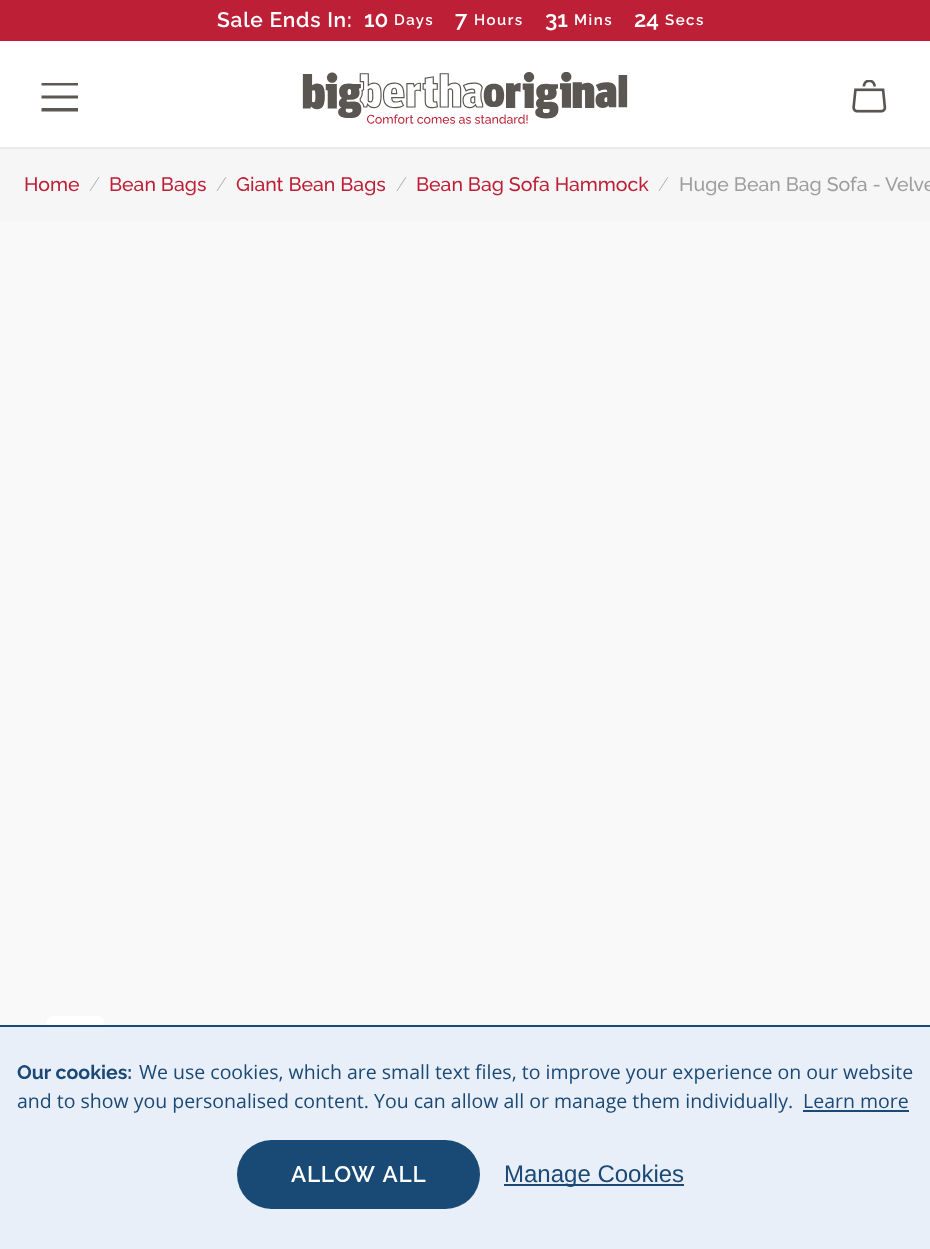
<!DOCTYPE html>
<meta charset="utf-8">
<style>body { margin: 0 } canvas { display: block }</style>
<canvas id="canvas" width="930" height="1249"></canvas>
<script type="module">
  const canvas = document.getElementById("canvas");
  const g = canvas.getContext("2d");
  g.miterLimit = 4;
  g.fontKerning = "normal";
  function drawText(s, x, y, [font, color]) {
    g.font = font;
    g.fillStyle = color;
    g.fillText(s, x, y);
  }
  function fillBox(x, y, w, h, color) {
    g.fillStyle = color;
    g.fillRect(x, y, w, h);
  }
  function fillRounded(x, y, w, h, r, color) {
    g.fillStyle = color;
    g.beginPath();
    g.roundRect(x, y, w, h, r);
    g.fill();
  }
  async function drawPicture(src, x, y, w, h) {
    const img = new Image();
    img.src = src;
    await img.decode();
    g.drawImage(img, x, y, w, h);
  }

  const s1 = ["600 21px Raleway", "#FFFFFF"];
  const s2 = ["600 22.5px Raleway", "#FFFFFF"];
  const s3 = ["600 15px Raleway", "#FFFFFF"];
  const s4 = ["500 19.5px Raleway", "#BD2036"];
  const s5 = ["200 19.5px Raleway", "#9E9E9E"];
  const s6 = ["500 19.5px Raleway", "#9E9E9E"];
  const s7 = ["bold 19.5px Raleway", "#1B4975"];
  const s8 = ["19.5px Open Sans", "#1B4975"];
  const s9 = ["24px Liberation Sans", "#1B4975"];

  fillBox(0, 0, 930, 1249, "#FFFFFF");
  fillBox(0, 0, 930, 41, "#BD2036");
  g.letterSpacing = "0.75px";
  drawText("Sale Ends In:", 217, 27, s1);
  g.letterSpacing = "0px";
  drawText("10", 364, 27, s2);
  g.letterSpacing = "1.5px";
  drawText("Days", 394, 25, s3);
  g.letterSpacing = "0px";
  drawText("7", 455, 27, s2);
  g.letterSpacing = "1.5px";
  drawText("Hours", 474, 25, s3);
  g.letterSpacing = "0px";
  drawText("31", 545, 27, s2);
  g.letterSpacing = "1.5px";
  drawText("Mins", 574, 25, s3);
  g.letterSpacing = "0px";
  drawText("24", 634, 27, s2);
  g.letterSpacing = "1.5px";
  drawText("Secs", 665, 25, s3);
  fillBox(0, 147, 930, 2, "#EBEBEB");
  g.save();
  g.beginPath();
  g.rect(41, 83, 39, 30);
  g.clip();
  g.fillStyle = "#5C5853";
  g.beginPath();
  g.moveTo(78, 85.5);
  g.lineTo(41.5, 85.5);
  g.lineTo(41.5, 82.5);
  g.lineTo(78, 82.5);
  g.closePath();
  g.moveTo(78, 98.5);
  g.lineTo(41.5, 98.5);
  g.lineTo(41.5, 95.5);
  g.lineTo(78, 95.5);
  g.closePath();
  g.moveTo(41.5, 111.5);
  g.lineTo(78, 111.5);
  g.lineTo(78, 108);
  g.lineTo(41.5, 108);
  g.closePath();
  g.fill("evenodd");
  g.restore();
  await drawPicture("pic1.png", 302, 72, 326, 52);
  await drawPicture("pic2.png", 852, 80, 35, 33);
  fillBox(0, 149, 930, 72, "#F6F6F6");
  g.letterSpacing = "0px";
  drawText("Home", 24, 191, s4);
  drawText("/", 89, 191, s5);
  drawText("Bean Bags", 109, 191, s4);
  drawText("/", 216, 191, s5);
  drawText("Giant Bean Bags", 236, 191, s4);
  drawText("/", 396, 191, s5);
  drawText("Bean Bag Sofa Hammock", 416, 191, s4);
  drawText("/", 658, 191, s5);
  drawText("Huge Bean Bag Sofa - Velve", 679, 191, s6);
  fillBox(0, 221, 930, 804, "#F9F9F9");
  fillRounded(47, 1016, 57, 57, 6, "#FFFFFF");
  fillBox(0, 1027, 930, 222, "#E8EFF9");
  fillBox(0, 1025, 930, 2, "#194A75");
  drawText("Our cookies:", 17, 1079, s7);
  drawText("We use cookies, which are small text files, to improve your experience on our website", 139, 1079, s8);
  drawText("and to show you personalised content. You can allow all or manage them individually.", 17, 1108, s8);
  drawText("Learn more", 803, 1108, s8);
  fillBox(803, 1110, 106, 2, "#1B4975");
  fillRounded(237, 1140, 243, 69, 34.5, "#194A75");
  g.letterSpacing = "0.75px";
  g.wordSpacing = "2px";
  drawText("ALLOW ALL", 291, 1182, s2);
  fillBox(504, 1184, 180, 2, "#1B4975");
  g.letterSpacing = "0px";
  g.wordSpacing = "0px";
  drawText("Manage Cookies", 504, 1182, s9);
</script>
